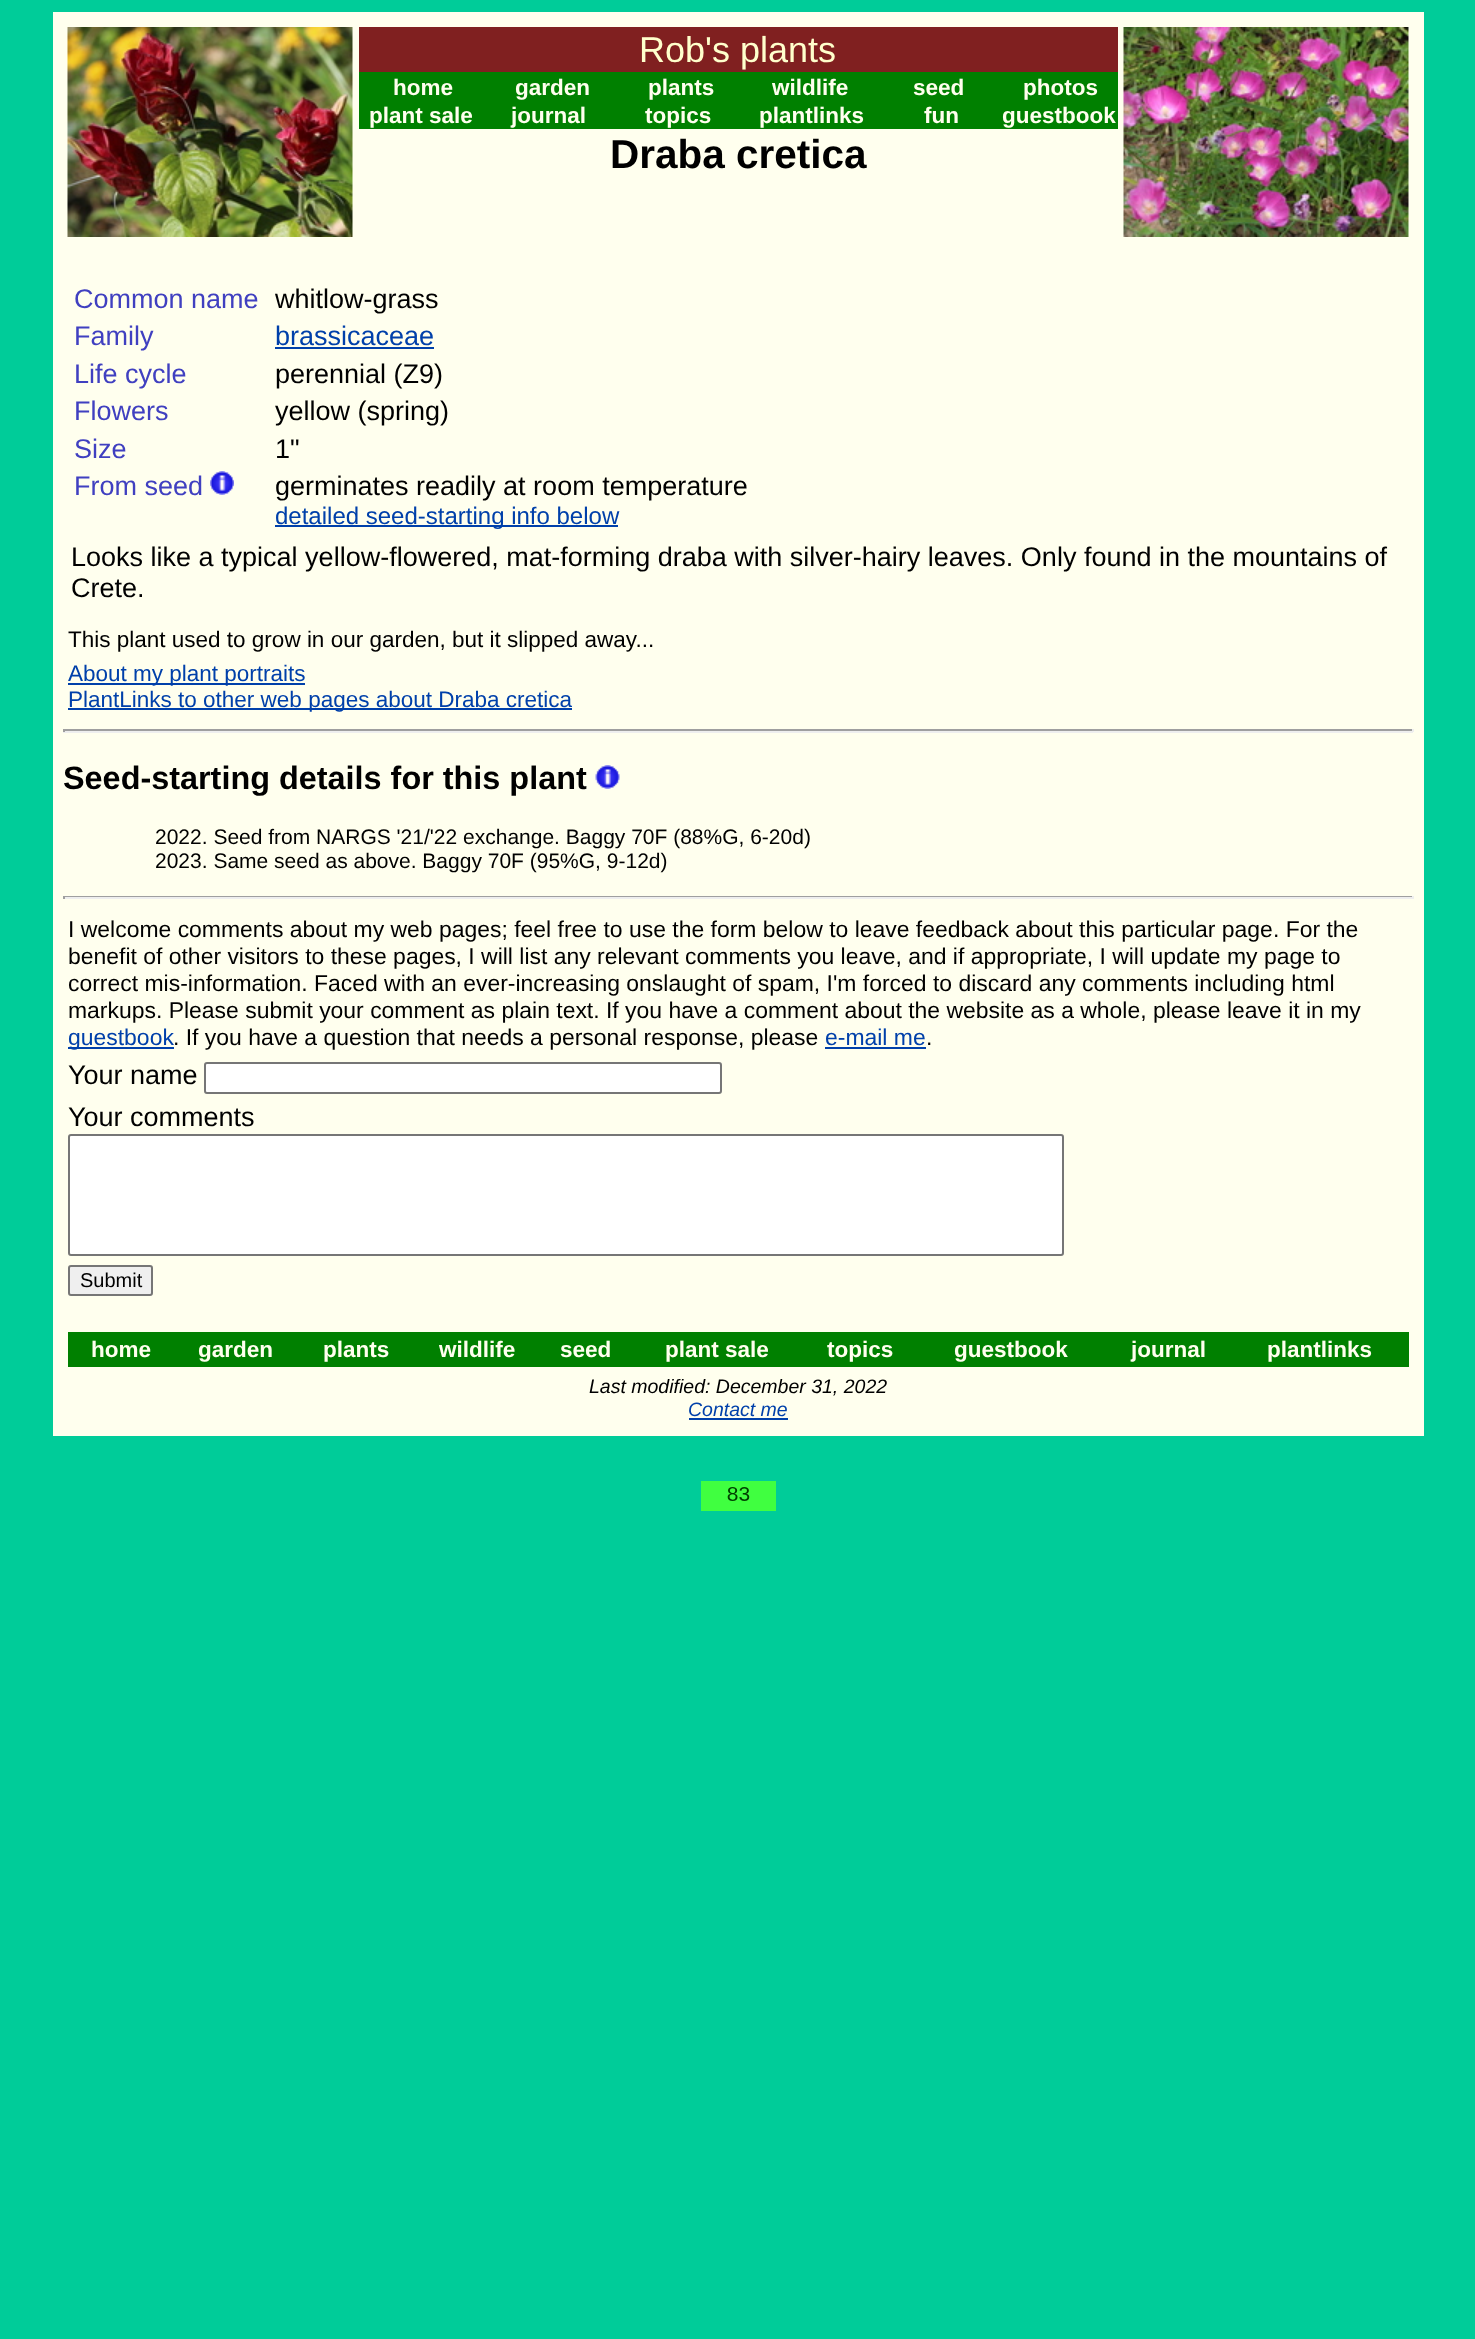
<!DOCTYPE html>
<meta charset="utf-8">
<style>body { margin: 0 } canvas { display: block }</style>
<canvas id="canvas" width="1475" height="2339"></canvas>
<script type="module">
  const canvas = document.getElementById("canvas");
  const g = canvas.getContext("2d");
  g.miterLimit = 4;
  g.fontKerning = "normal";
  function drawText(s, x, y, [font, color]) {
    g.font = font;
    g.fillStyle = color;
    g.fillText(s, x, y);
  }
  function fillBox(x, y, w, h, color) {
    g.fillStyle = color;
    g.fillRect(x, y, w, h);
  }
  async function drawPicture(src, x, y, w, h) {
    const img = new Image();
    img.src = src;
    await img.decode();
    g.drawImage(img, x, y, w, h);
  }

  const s1 = ["36px Liberation Sans", "#FFFFCC"];
  const s2 = ["bold 22.5px Liberation Sans", "#FFFFEE"];
  const s3 = ["bold 40.5px Liberation Sans", "#000000"];
  const s4 = ["27px Liberation Sans", "#4040C0"];
  const s5 = ["27px Liberation Sans", "#000000"];
  const s6 = ["27px Liberation Sans", "#0040AA"];
  const s7 = ["24px Liberation Sans", "#0040AA"];
  const s8 = ["22.5px Liberation Sans", "#000000"];
  const s9 = ["22.5px Liberation Sans", "#0040AA"];
  const s10 = ["bold 32.4px Liberation Sans", "#000000"];
  const s11 = ["21px Liberation Sans", "#000000"];
  const s12 = ["22.95px Liberation Sans", "#000000"];
  const s13 = ["22.95px Liberation Sans", "#0040AA"];
  const s14 = ["20px Liberation Sans", "#000000"];
  const s15 = ["italic 19.5px Liberation Sans", "#000000"];
  const s16 = ["italic 19.5px Liberation Sans", "#0040AA"];

  fillBox(0, 0, 1475, 2339, "#00CC99");
  fillBox(53, 12, 1371, 1424, "#FFFFEE");
  await drawPicture("pic1.png", 67, 27, 286, 210);
  fillBox(359, 72, 759, 57, "#008000");
  fillBox(359, 27, 759, 45, "#802020");
  drawText("Rob's plants", 639, 62, s1);
  drawText("home", 393, 95, s2);
  drawText("garden", 515, 95, s2);
  drawText("plants", 648, 95, s2);
  drawText("wildlife", 772, 95, s2);
  drawText("seed", 913, 95, s2);
  drawText("photos", 1023, 95, s2);
  drawText("plant sale", 369, 123, s2);
  drawText("journal", 511, 123, s2);
  drawText("topics", 645, 123, s2);
  drawText("plantlinks", 759, 123, s2);
  drawText("fun", 924, 123, s2);
  drawText("guestbook", 1002, 123, s2);
  drawText("Draba cretica", 610, 168, s3);
  await drawPicture("pic2.png", 1123, 27, 286, 210);
  drawText("Common name", 74, 308, s4);
  drawText("whitlow-grass", 275, 308, s5);
  drawText("Family", 74, 345, s4);
  drawText("brassicaceae", 275, 345, s6);
  fillBox(275, 347, 159, 2, "#0040AA");
  drawText("Life cycle", 74, 383, s4);
  drawText("perennial (Z9)", 275, 383, s5);
  drawText("Flowers", 74, 420, s4);
  drawText("yellow (spring)", 275, 420, s5);
  drawText("Size", 74, 458, s4);
  drawText("1\"", 275, 458, s5);
  drawText("From seed", 74, 495, s4);
  await drawPicture("pic3.png", 210, 471, 24, 24);
  drawText("germinates readily at room temperature", 275, 495, s5);
  fillBox(275, 525, 343, 2, "#0040AA");
  drawText("detailed seed-starting info below", 275, 524, s7);
  drawText("Looks like a typical yellow-flowered, mat-forming draba with silver-hairy leaves. Only found in the mountains of", 71, 566, s5);
  drawText("Crete.", 71, 597, s5);
  drawText("This plant used to grow in our garden, but it slipped away...", 68, 647, s8);
  fillBox(68, 683, 237, 2, "#0040AA");
  drawText("About my plant portraits", 68, 681, s9);
  fillBox(68, 708, 504, 2, "#0040AA");
  drawText("PlantLinks to other web pages about Draba cretica", 68, 707, s9);
  fillBox(63, 729, 1350, 2, "#9F9F9F");
  fillBox(1412, 729, 2, 3, "#EEEEEE");
  fillBox(63, 731, 1350, 2, "#EEEEEE");
  fillBox(63, 729, 2, 3, "#9F9F9F");
  drawText("Seed-starting details for this plant", 63, 789, s10);
  await drawPicture("pic4.png", 595, 765, 25, 24);
  drawText("2022. Seed from NARGS '21/'22 exchange. Baggy 70F (88%G, 6-20d)", 155, 844, s11);
  drawText("2023. Same seed as above. Baggy 70F (95%G, 9-12d)", 155, 868, s11);
  fillBox(63, 896, 1350, 1, "#9F9F9F");
  fillBox(1412, 896, 2, 3, "#EEEEEE");
  fillBox(63, 897, 1350, 2, "#EEEEEE");
  fillBox(63, 896, 2, 3, "#9F9F9F");
  drawText("I welcome comments about my web pages; feel free to use the form below to leave feedback about this particular page. For the", 68, 937, s12);
  drawText("benefit of other visitors to these pages, I will list any relevant comments you leave, and if appropriate, I will update my page to", 68, 964, s12);
  drawText("correct mis-information. Faced with an ever-increasing onslaught of spam, I'm forced to discard any comments including html", 68, 991, s12);
  drawText("markups. Please submit your comment as plain text. If you have a comment about the website as a whole, please leave it in my", 68, 1018, s12);
  fillBox(68, 1047, 106, 2, "#0040AA");
  drawText("guestbook", 68, 1045, s13);
  drawText(". If you have a question that needs a personal response, please", 173, 1045, s12);
  drawText("e-mail me", 825, 1045, s13);
  fillBox(825, 1047, 101, 2, "#0040AA");
  drawText(".", 926, 1045, s12);
  drawText("Your name", 68, 1084, s5);
  g.fillStyle = "#FFFFFF";
  g.beginPath();
  g.roundRect(205, 1063, 516, 30, 2);
  g.fill();
  g.strokeStyle = "#767676";
  g.lineWidth = 2;
  g.stroke();
  drawText("Your comments", 68, 1126, s5);
  g.fillStyle = "#FFFFFF";
  g.beginPath();
  g.roundRect(69, 1135, 994, 120, 2);
  g.fill();
  g.stroke();
  g.fillStyle = "#EFEFEF";
  g.beginPath();
  g.roundRect(69, 1266, 83, 29, 2);
  g.fill();
  g.stroke();
  drawText("Submit", 80, 1287, s14);
  fillBox(68, 1332, 1341, 35, "#008000");
  drawText("home", 91, 1357, s2);
  drawText("garden", 198, 1357, s2);
  drawText("plants", 323, 1357, s2);
  drawText("wildlife", 439, 1357, s2);
  drawText("seed", 560, 1357, s2);
  drawText("plant sale", 665, 1357, s2);
  drawText("topics", 827, 1357, s2);
  drawText("guestbook", 954, 1357, s2);
  drawText("journal", 1131, 1357, s2);
  drawText("plantlinks", 1267, 1357, s2);
  drawText("Last modified: December 31, 2022", 589, 1393, s15);
  drawText("Contact me", 688, 1416, s16);
  fillBox(689, 1418, 99, 2, "#0040AA");
  await drawPicture("pic5.png", 701, 1481, 75, 30);
</script>
